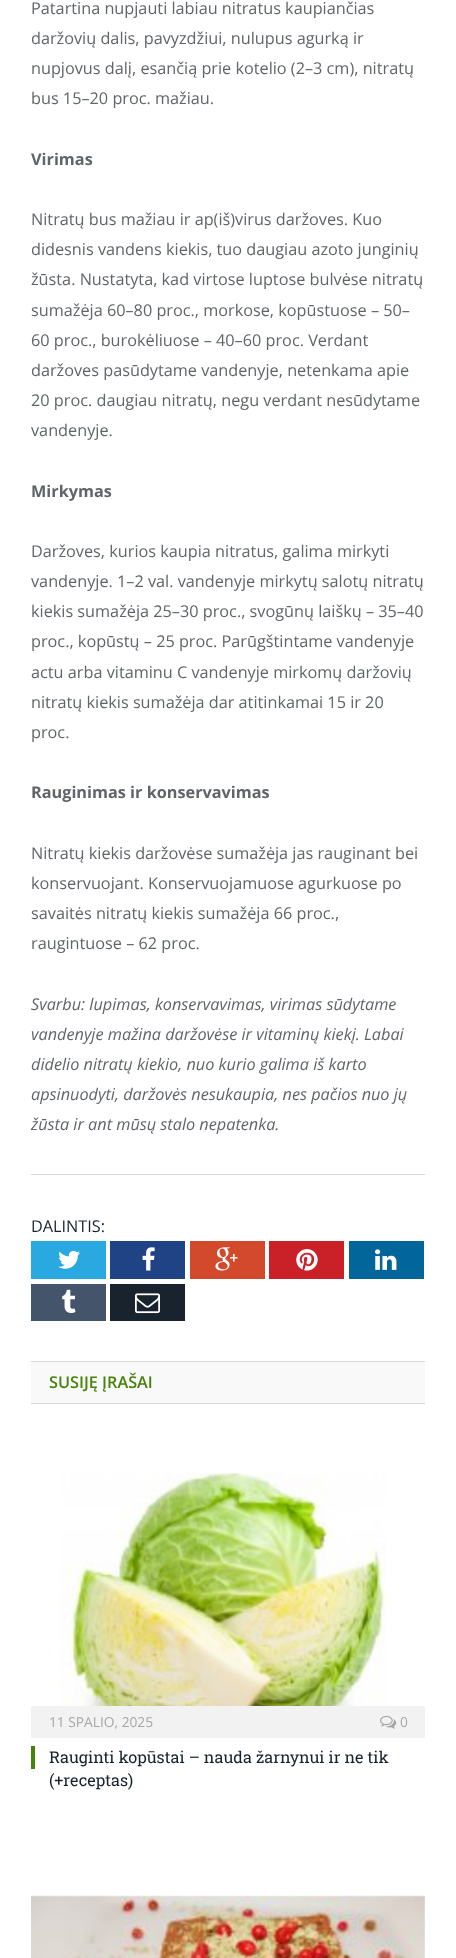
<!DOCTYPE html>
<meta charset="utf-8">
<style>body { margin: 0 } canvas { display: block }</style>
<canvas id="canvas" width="456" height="1958"></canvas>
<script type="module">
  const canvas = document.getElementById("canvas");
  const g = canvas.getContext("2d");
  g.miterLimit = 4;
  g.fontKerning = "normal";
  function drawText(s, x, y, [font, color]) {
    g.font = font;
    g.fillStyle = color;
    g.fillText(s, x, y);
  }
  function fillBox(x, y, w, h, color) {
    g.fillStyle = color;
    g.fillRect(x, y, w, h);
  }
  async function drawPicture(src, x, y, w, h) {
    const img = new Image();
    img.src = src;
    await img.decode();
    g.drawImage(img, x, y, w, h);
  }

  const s1 = ["16.25px Open Sans", "#606569"];
  const s2 = ["bold 16.25px Open Sans", "#606569"];
  const s3 = ["italic 16.25px Open Sans", "#606569"];
  const s4 = ["16.25px Open Sans", "#19232D"];
  const s5 = ["600 16.25px Open Sans", "#45830B"];
  const s6 = ["13.75px Open Sans", "#A6A6A6"];
  const s7 = ["16.25px Roboto Slab", "#19232D"];

  fillBox(0, 0, 456, 1958, "#FFFFFF");
  drawText("Patartina nupjauti labiau nitratus kaupiančias", 31, 14, s1);
  drawText("daržovių dalis, pavyzdžiui, nulupus agurką ir", 31, 44, s1);
  drawText("nupjovus dalį, esančią prie kotelio (2–3 cm), nitratų", 31, 74, s1);
  drawText("bus 15–20 proc. mažiau.", 31, 104, s1);
  drawText("Virimas", 31, 165, s2);
  drawText("Nitratų bus mažiau ir ap(iš)virus daržoves. Kuo", 31, 225, s1);
  drawText("didesnis vandens kiekis, tuo daugiau azoto junginių", 31, 255, s1);
  drawText("žūsta. Nustatyta, kad virtose luptose bulvėse nitratų", 31, 285, s1);
  drawText("sumažėja 60–80 proc., morkose, kopūstuose – 50–", 31, 316, s1);
  drawText("60 proc., burokėliuose – 40–60 proc. Verdant", 31, 346, s1);
  drawText("daržoves pasūdytame vandenyje, netenkama apie", 31, 376, s1);
  drawText("20 proc. daugiau nitratų, negu verdant nesūdytame", 31, 406, s1);
  drawText("vandenyje.", 31, 436, s1);
  drawText("Mirkymas", 31, 497, s2);
  drawText("Daržoves, kurios kaupia nitratus, galima mirkyti", 31, 557, s1);
  drawText("vandenyje. 1–2 val. vandenyje mirkytų salotų nitratų", 31, 587, s1);
  drawText("kiekis sumažėja 25–30 proc., svogūnų laiškų – 35–40", 31, 617, s1);
  drawText("proc., kopūstų – 25 proc. Parūgštintame vandenyje", 31, 647, s1);
  drawText("actu arba vitaminu C vandenyje mirkomų daržovių", 31, 678, s1);
  drawText("nitratų kiekis sumažėja dar atitinkamai 15 ir 20", 31, 708, s1);
  drawText("proc.", 31, 738, s1);
  drawText("Rauginimas ir konservavimas", 31, 798, s2);
  drawText("Nitratų kiekis daržovėse sumažėja jas rauginant bei", 31, 859, s1);
  drawText("konservuojant. Konservuojamuose agurkuose po", 31, 889, s1);
  drawText("savaitės nitratų kiekis sumažėja 66 proc.,", 31, 919, s1);
  drawText("raugintuose – 62 proc.", 31, 949, s1);
  drawText("Svarbu: lupimas, konservavimas, virimas sūdytame", 31, 1010, s3);
  drawText("vandenyje mažina daržovėse ir vitaminų kiekį. Labai", 31, 1040, s3);
  drawText("didelio nitratų kiekio, nuo kurio galima iš karto", 31, 1070, s3);
  drawText("apsinuodyti, daržovės nesukaupia, nes pačios nuo jų", 31, 1100, s3);
  drawText("žūsta ir ant mūsų stalo nepatenka.", 31, 1130, s3);
  fillBox(31, 1174, 394, 1, "#D9D9D9");
  drawText("DALINTIS:", 31, 1232, s4);
  fillBox(31, 1241, 75, 38, "#2AA9E0");
  await drawPicture("pic1.png", 58, 1250, 22, 19);
  fillBox(110, 1241, 75, 38, "#204385");
  await drawPicture("pic2.png", 142, 1247, 13, 24);
  fillBox(190, 1241, 75, 38, "#D3492C");
  await drawPicture("pic3.png", 215, 1247, 23, 24);
  fillBox(269, 1241, 75, 38, "#CA2128");
  await drawPicture("pic4.png", 296, 1249, 22, 22);
  fillBox(349, 1241, 75, 38, "#02669A");
  await drawPicture("pic5.png", 375, 1249, 22, 21);
  fillBox(31, 1284, 75, 37, "#44546B");
  await drawPicture("pic6.png", 62, 1289, 14, 24);
  fillBox(110, 1284, 75, 37, "#19232D");
  await drawPicture("pic7.png", 135, 1293, 25, 21);
  fillBox(31, 1362, 394, 41, "#F9F9F9");
  fillBox(31, 1361, 394, 1, "#D9D9D9");
  fillBox(31, 1403, 394, 1, "#D9D9D9");
  drawText("SUSIJĘ ĮRAŠAI", 49, 1388, s5);
  await drawPicture("pic8.png", 60, 1473, 327, 233);
  fillBox(31, 1706, 394, 32, "#F2F2F2");
  drawText("11 SPALIO, 2025", 49, 1727, s6);
  await drawPicture("pic9.png", 380, 1715, 17, 14);
  drawText("0", 400, 1727, s6);
  fillBox(31, 1746, 4, 23, "#45830B");
  drawText("Rauginti kopūstai – nauda žarnynui ir ne tik", 49, 1763, s7);
  drawText("(+receptas)", 49, 1786, s7);
  await drawPicture("pic10.png", 31, 1895, 394, 63);
</script>
